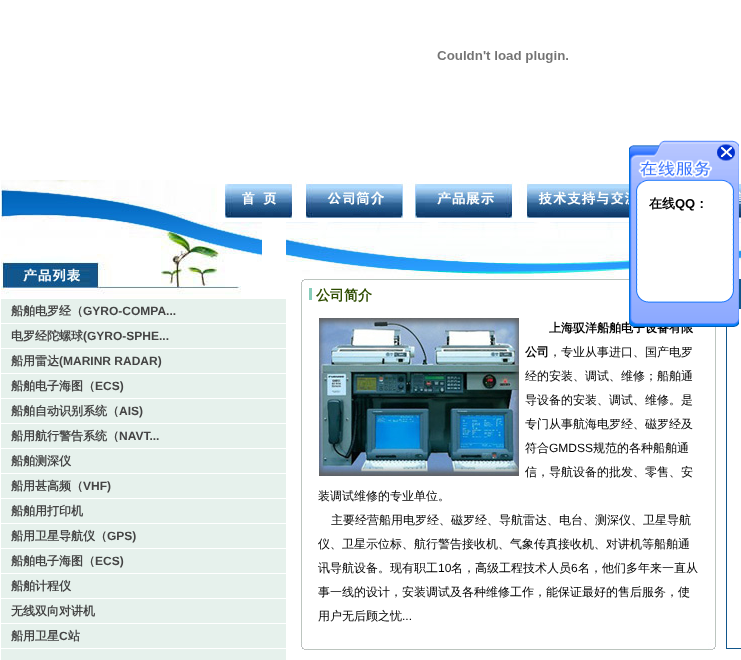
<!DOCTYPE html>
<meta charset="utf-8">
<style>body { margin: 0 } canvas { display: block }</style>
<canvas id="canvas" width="741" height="660"></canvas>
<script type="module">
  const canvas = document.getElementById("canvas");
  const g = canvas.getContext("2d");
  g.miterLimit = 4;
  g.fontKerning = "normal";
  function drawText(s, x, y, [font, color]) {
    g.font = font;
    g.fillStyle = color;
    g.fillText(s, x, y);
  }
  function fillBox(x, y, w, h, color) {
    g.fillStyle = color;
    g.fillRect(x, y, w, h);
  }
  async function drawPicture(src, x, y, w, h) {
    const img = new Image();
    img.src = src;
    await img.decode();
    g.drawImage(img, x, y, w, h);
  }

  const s1 = ["bold 13px WenQuanYi Zen Hei", "#000000"];
  const s2 = ["bold 13px Liberation Sans", "#000000"];
  const s3 = ["bold 12px WenQuanYi Zen Hei", "#000000"];
  const s4 = ["bold 12px WenQuanYi Zen Hei", "#444444"];
  const s5 = ["bold 12px Liberation Sans", "#444444"];
  const s6 = ["bold 14px WenQuanYi Zen Hei", "#2E4C00"];
  const s7 = ["500 12px WenQuanYi Zen Hei", "#000000"];
  const s8 = ["12px Liberation Sans", "#000000"];

  fillBox(0, 0, 741, 660, "#FFFFFF");
  await drawPicture("pic1.png", 437, 51, 131, 12);
  await drawPicture("pic2.png", 1, 180, 740, 42);
  await drawPicture("pic3.png", 629, 140, 110, 49);
  await drawPicture("pic7.png", 286, 222, 455, 56);
  await drawPicture("pic4.png", 629, 189, 110, 102);
  drawText("在线", 649, 208, s1);
  drawText("QQ", 675, 208, s2);
  drawText("：", 695, 208, s1);
  drawText("上海驭洋船舶电子设备有限", 549, 332, s3);
  g.strokeStyle = "#11568B";
  g.strokeRect(726.5, 308.5, 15, 340);
  await drawPicture("pic5.png", 629, 291, 110, 36);
  await drawPicture("pic6.png", 1, 222, 261, 76);
  fillBox(1, 299, 285, 24, "#E6F1EC");
  drawText("船舶电罗经（", 11, 315, s4);
  drawText("GYRO-COMPA...", 83, 315, s5);
  fillBox(1, 324, 285, 24, "#E6F1EC");
  drawText("电罗经陀螺球", 11, 340, s4);
  drawText("(GYRO-SPHE...", 83, 340, s5);
  fillBox(1, 349, 285, 24, "#E6F1EC");
  drawText("船用雷达", 11, 365, s4);
  drawText("(MARINR RADAR)", 59, 365, s5);
  fillBox(1, 374, 285, 24, "#E6F1EC");
  drawText("船舶电子海图（", 11, 390, s4);
  drawText("ECS)", 95, 390, s5);
  fillBox(1, 399, 285, 24, "#E6F1EC");
  drawText("船舶自动识别系统（", 11, 415, s4);
  drawText("AIS)", 119, 415, s5);
  fillBox(1, 424, 285, 24, "#E6F1EC");
  drawText("船用航行警告系统（", 11, 440, s4);
  drawText("NAVT...", 119, 440, s5);
  fillBox(1, 449, 285, 24, "#E6F1EC");
  drawText("船舶测深仪", 11, 465, s4);
  fillBox(1, 474, 285, 24, "#E6F1EC");
  drawText("船用甚高频（", 11, 490, s4);
  drawText("VHF)", 83, 490, s5);
  fillBox(1, 499, 285, 24, "#E6F1EC");
  drawText("船舶用打印机", 11, 515, s4);
  fillBox(1, 524, 285, 24, "#E6F1EC");
  drawText("船用卫星导航仪（", 11, 540, s4);
  drawText("GPS)", 107, 540, s5);
  fillBox(1, 549, 285, 24, "#E6F1EC");
  drawText("船舶电子海图（", 11, 565, s4);
  drawText("ECS)", 95, 565, s5);
  fillBox(1, 574, 285, 24, "#E6F1EC");
  drawText("船舶计程仪", 11, 590, s4);
  fillBox(1, 599, 285, 24, "#E6F1EC");
  drawText("无线双向对讲机", 11, 615, s4);
  fillBox(1, 624, 285, 24, "#E6F1EC");
  drawText("船用卫星", 11, 640, s4);
  drawText("C", 59, 640, s5);
  drawText("站", 68, 640, s4);
  fillBox(1, 649, 285, 11, "#E6F1EC");
  await drawPicture("pic8.png", 301, 279, 8, 8);
  fillBox(309, 279, 320, 1, "#BCC5BF");
  fillBox(301, 287, 1, 355, "#BCC5BF");
  fillBox(309, 288, 3, 12, "#88CDBB");
  drawText("公司简介", 316, 300, s6);
  await drawPicture("pic9.png", 319, 318, 200, 158);
  drawText("公司", 525, 356, s3);
  drawText("，专业从事进口、国产电罗", 549, 356, s7);
  drawText("经的安装、调试、维修；船舶通", 525, 380, s7);
  drawText("导设备的安装、调试、维修。是", 525, 404, s7);
  drawText("专门从事航海电罗经、磁罗经及", 525, 428, s7);
  drawText("符合", 525, 452, s7);
  drawText("GMDSS", 549, 452, s8);
  drawText("规范的各种船舶通", 593, 452, s7);
  drawText("信，导航设备的批发、零售、安", 525, 476, s7);
  drawText("装调试维修的专业单位。", 318, 500, s7);
  drawText("主要经营船用电罗经、磁罗经、导航雷达、电台、测深仪、卫星导航", 331, 524, s7);
  drawText("仪、卫星示位标、航行警告接收机、气象传真接收机、对讲机等船舶通", 318, 548, s7);
  drawText("讯导航设备。现有职工", 318, 572, s7);
  drawText("10", 438, 572, s8);
  drawText("名，高级工程技术人员", 451, 572, s7);
  drawText("6", 571, 572, s8);
  drawText("名，他们多年来一直从", 578, 572, s7);
  drawText("事一线的设计，安装调试及各种维修工作，能保证最好的售后服务，使", 318, 596, s7);
  drawText("用户无后顾之忧", 318, 620, s7);
  drawText("...", 402, 620, s8);
  fillBox(715, 327, 1, 315, "#BCC5BF");
  await drawPicture("pic10.png", 301, 642, 8, 8);
  fillBox(309, 649, 399, 1, "#BCC5BF");
  await drawPicture("pic11.png", 708, 642, 8, 8);
  fillBox(739, 279, 2, 29, "#11568B");
</script>
